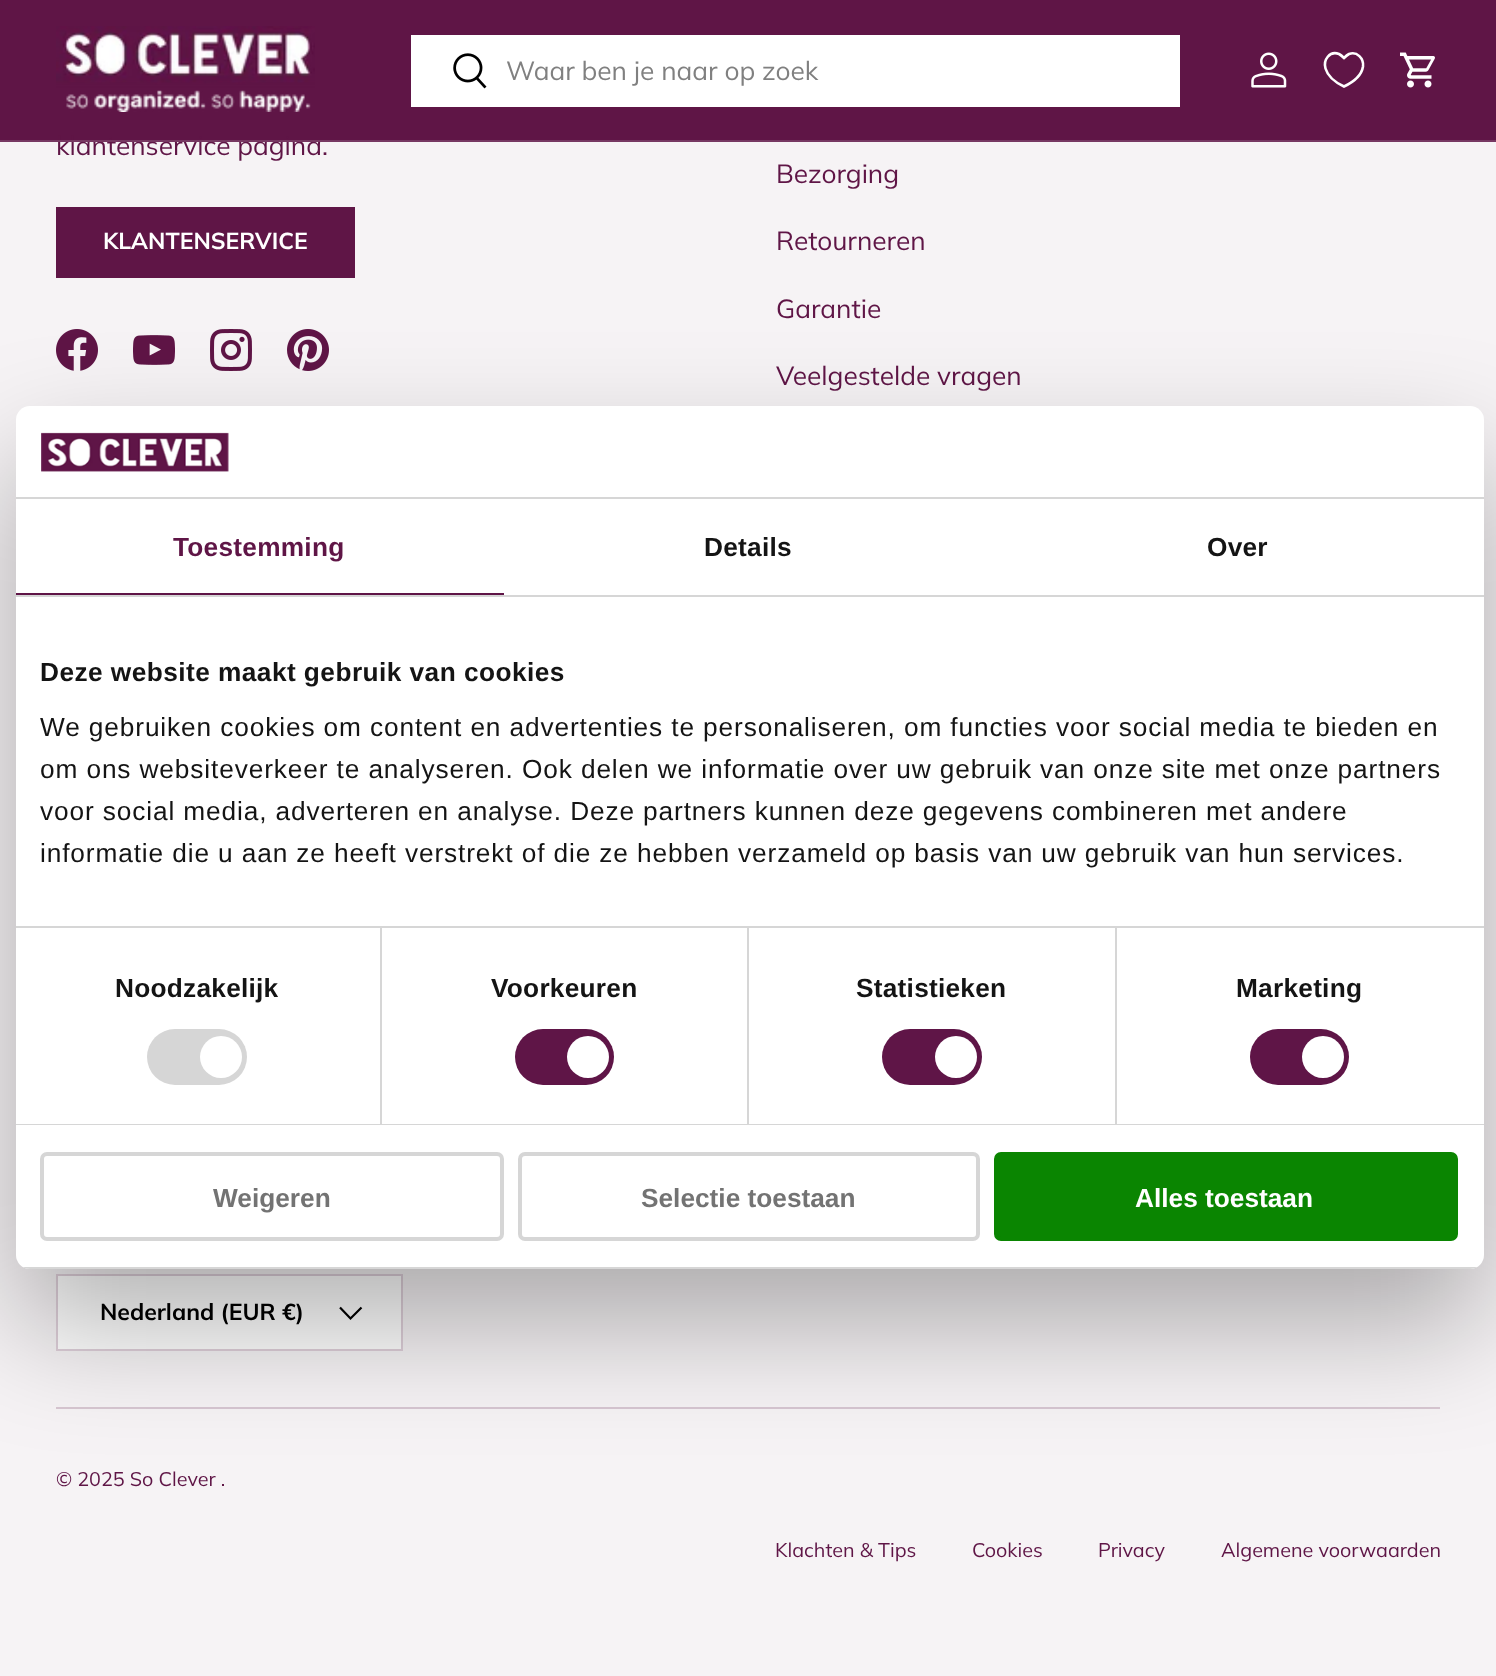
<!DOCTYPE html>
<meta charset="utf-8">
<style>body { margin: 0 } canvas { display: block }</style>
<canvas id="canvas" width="1496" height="1676"></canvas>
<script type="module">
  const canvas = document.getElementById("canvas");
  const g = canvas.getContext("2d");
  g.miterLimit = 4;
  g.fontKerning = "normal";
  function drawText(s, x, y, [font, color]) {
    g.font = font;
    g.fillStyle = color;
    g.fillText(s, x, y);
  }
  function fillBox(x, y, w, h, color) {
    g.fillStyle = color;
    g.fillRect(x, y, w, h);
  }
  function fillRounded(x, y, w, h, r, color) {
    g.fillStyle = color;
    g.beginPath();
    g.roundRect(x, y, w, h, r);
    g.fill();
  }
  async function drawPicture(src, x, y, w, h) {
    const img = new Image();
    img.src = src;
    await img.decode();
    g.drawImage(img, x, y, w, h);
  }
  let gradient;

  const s1 = ["26.25px Muli", "#5F1546"];
  const s2 = ["26.25px Muli", "#808080"];
  const s3 = ["bold 23px Muli", "#FFFFFF"];
  const s4 = ["bold 23px Muli", "#000000"];
  const s5 = ["19.75px Muli", "#5F1546"];
  const s6 = ["bold 26.25px Liberation Sans", "#5F1546"];
  const s7 = ["bold 26.25px Liberation Sans", "#141414"];
  const s8 = ["26.25px Liberation Sans", "#141414"];
  const s9 = ["bold 26.25px Liberation Sans", "#737373"];
  const s10 = ["bold 26.25px Liberation Sans", "#FFFFFF"];

  fillBox(0, 0, 1496, 1676, "#F6F3F5");
  fillBox(0, 0, 1496, 140, "#5F1546");
  drawText("klantenservice pagina.", 56, 155, s1);
  fillBox(0, 140, 1496, 2, "#773862");
  await drawPicture("pic1.png", 56, 26, 259, 86);
  fillBox(411, 35, 769, 72, "#FFFFFF");
  await drawPicture("pic2.png", 453, 53, 34, 36);
  drawText("Waar ben je naar op zoek", 506, 80, s2);
  await drawPicture("pic3.png", 1251, 52, 36, 36);
  g.beginPath();
  g.moveTo(1344, 86.5);
  g.bezierCurveTo(1336.5, 83, 1328, 77, 1325.5, 68.5);
  g.bezierCurveTo(1323, 60, 1329.5, 50.5, 1339, 54);
  g.bezierCurveTo(1341, 55, 1342.5, 56.5, 1344, 58);
  g.bezierCurveTo(1345.5, 56.5, 1347, 55, 1349, 54);
  g.bezierCurveTo(1357, 51, 1364, 58.5, 1363, 66.5);
  g.bezierCurveTo(1361.5, 76, 1352.5, 82.5, 1344, 86.5);
  g.closePath();
  g.strokeStyle = "#FFFFFF";
  g.lineWidth = 2.6;
  g.stroke();
  await drawPicture("pic4.png", 1400, 52, 35, 36);
  gradient = g.createLinearGradient(-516, 136, 336, 349);
  gradient.addColorStop(0.6, "#813D6B");
  gradient.addColorStop(0.6, "#5F1546");
  gradient.addColorStop(1, "#5F1546");
  g.fillStyle = gradient;
  g.fillRect(58, 209, 295, 67);
  g.strokeStyle = "#5F1546";
  g.lineWidth = 2;
  g.strokeRect(57, 208, 297, 69);
  drawText("KLANTENSERVICE", 103, 249, s3);
  await drawPicture("pic5.png", 56, 329, 42, 42);
  await drawPicture("pic6.png", 133, 335, 42, 30);
  await drawPicture("pic7.png", 210, 329, 42, 42);
  await drawPicture("pic8.png", 287, 329, 42, 42);
  drawText("Bezorging", 776, 183, s1);
  drawText("Retourneren", 776, 250, s1);
  drawText("Garantie", 776, 318, s1);
  drawText("Veelgestelde vragen", 776, 385, s1);
  g.fillStyle = "#FFFFFF";
  g.beginPath();
  g.rect(57, 1275, 345, 75);
  g.fill();
  g.strokeStyle = "#DFD0DA";
  g.stroke();
  drawText("Nederland (EUR €)", 100, 1320, s4);
  g.beginPath();
  g.moveTo(361.5, 1307.5);
  g.lineTo(350.5, 1318.5);
  g.lineTo(340, 1307.5);
  g.strokeStyle = "#000000";
  g.lineWidth = 2.2;
  g.stroke();
  fillBox(56, 1407, 1384, 2, "#D8C7D2");
  drawText("© 2025 So Clever .", 56, 1486, s5);
  drawText("Klachten & Tips", 775, 1557, s5);
  drawText("Cookies", 972, 1557, s5);
  drawText("Privacy", 1098, 1557, s5);
  drawText("Algemene voorwaarden", 1221, 1557, s5);
  g.fillStyle = "rgba(0, 0, 0, 0.3)";
  g.filter = "blur(59.5px)";
  g.beginPath();
  g.roundRect(16, 462, 1468, 863, 14);
  g.fill();
  g.filter = "none";
  fillRounded(16, 406, 1468, 863, 14, "#FFFFFF");
  fillBox(16, 497, 1468, 2, "#D6D6D6");
  await drawPicture("pic9.png", 41, 432, 188, 40);
  fillBox(16, 595, 1468, 2, "#D6D6D6");
  fillBox(16, 593, 488, 2, "#5F1547");
  g.letterSpacing = "0.25px";
  drawText("Toestemming", 173, 556, s6);
  drawText("Details", 704, 556, s7);
  drawText("Over", 1207, 556, s7);
  fillBox(16, 926, 1468, 2, "#D6D6D6");
  g.letterSpacing = "0.45px";
  drawText("Deze website maakt gebruik van cookies", 40, 681, s7);
  g.letterSpacing = "0.88px";
  drawText("We gebruiken cookies om content en advertenties te personaliseren, om functies voor social media te bieden en", 40, 736, s8);
  drawText("om ons websiteverkeer te analyseren. Ook delen we informatie over uw gebruik van onze site met onze partners", 40, 778, s8);
  drawText("voor social media, adverteren en analyse. Deze partners kunnen deze gegevens combineren met andere", 40, 820, s8);
  drawText("informatie die u aan ze heeft verstrekt of die ze hebben verzameld op basis van uw gebruik van hun services.", 40, 862, s8);
  fillBox(16, 1124, 1468, 1, "#D6D6D6");
  fillBox(380, 928, 2, 196, "#D6D6D6");
  g.letterSpacing = "0.25px";
  drawText("Noodzakelijk", 115, 997, s7);
  fillRounded(147, 1029, 100, 56, 28, "#D6D6D6");
  g.fillStyle = "#FFFFFF";
  g.beginPath();
  g.arc(221, 1057, 21, 0, Math.PI * 2);
  g.fill();
  fillBox(747, 928, 2, 196, "#D6D6D6");
  drawText("Voorkeuren", 491, 997, s7);
  fillRounded(515, 1029, 99, 56, 28, "#5F1547");
  g.fillStyle = "#FFFFFF";
  g.beginPath();
  g.arc(588, 1057, 21, 0, Math.PI * 2);
  g.fill();
  fillBox(1115, 928, 2, 196, "#D6D6D6");
  drawText("Statistieken", 856, 997, s7);
  fillRounded(882, 1029, 100, 56, 28, "#5F1547");
  g.fillStyle = "#FFFFFF";
  g.beginPath();
  g.arc(956, 1057, 21, 0, Math.PI * 2);
  g.fill();
  drawText("Marketing", 1236, 997, s7);
  fillRounded(1250, 1029, 99, 56, 28, "#5F1547");
  g.fillStyle = "#FFFFFF";
  g.beginPath();
  g.arc(1323, 1057, 21, 0, Math.PI * 2);
  g.fill();
  g.save();
  g.beginPath();
  g.roundRect(16, 406, 1468, 863, 14);
  g.clip();
  fillBox(16, 1267, 1468, 2, "#D6D6D6");
  g.restore();
  g.beginPath();
  g.roundRect(42, 1154, 460, 85, 5);
  g.strokeStyle = "#D6D6D6";
  g.lineWidth = 4;
  g.stroke();
  g.letterSpacing = "0px";
  drawText("Weigeren", 213, 1207, s9);
  g.beginPath();
  g.roundRect(520, 1154, 458, 85, 5);
  g.stroke();
  drawText("Selectie toestaan", 641, 1207, s9);
  g.fillStyle = "#0A8501";
  g.beginPath();
  g.roundRect(996, 1154, 460, 85, 5);
  g.fill();
  g.strokeStyle = "#0A8501";
  g.stroke();
  drawText("Alles toestaan", 1135, 1207, s10);
</script>
